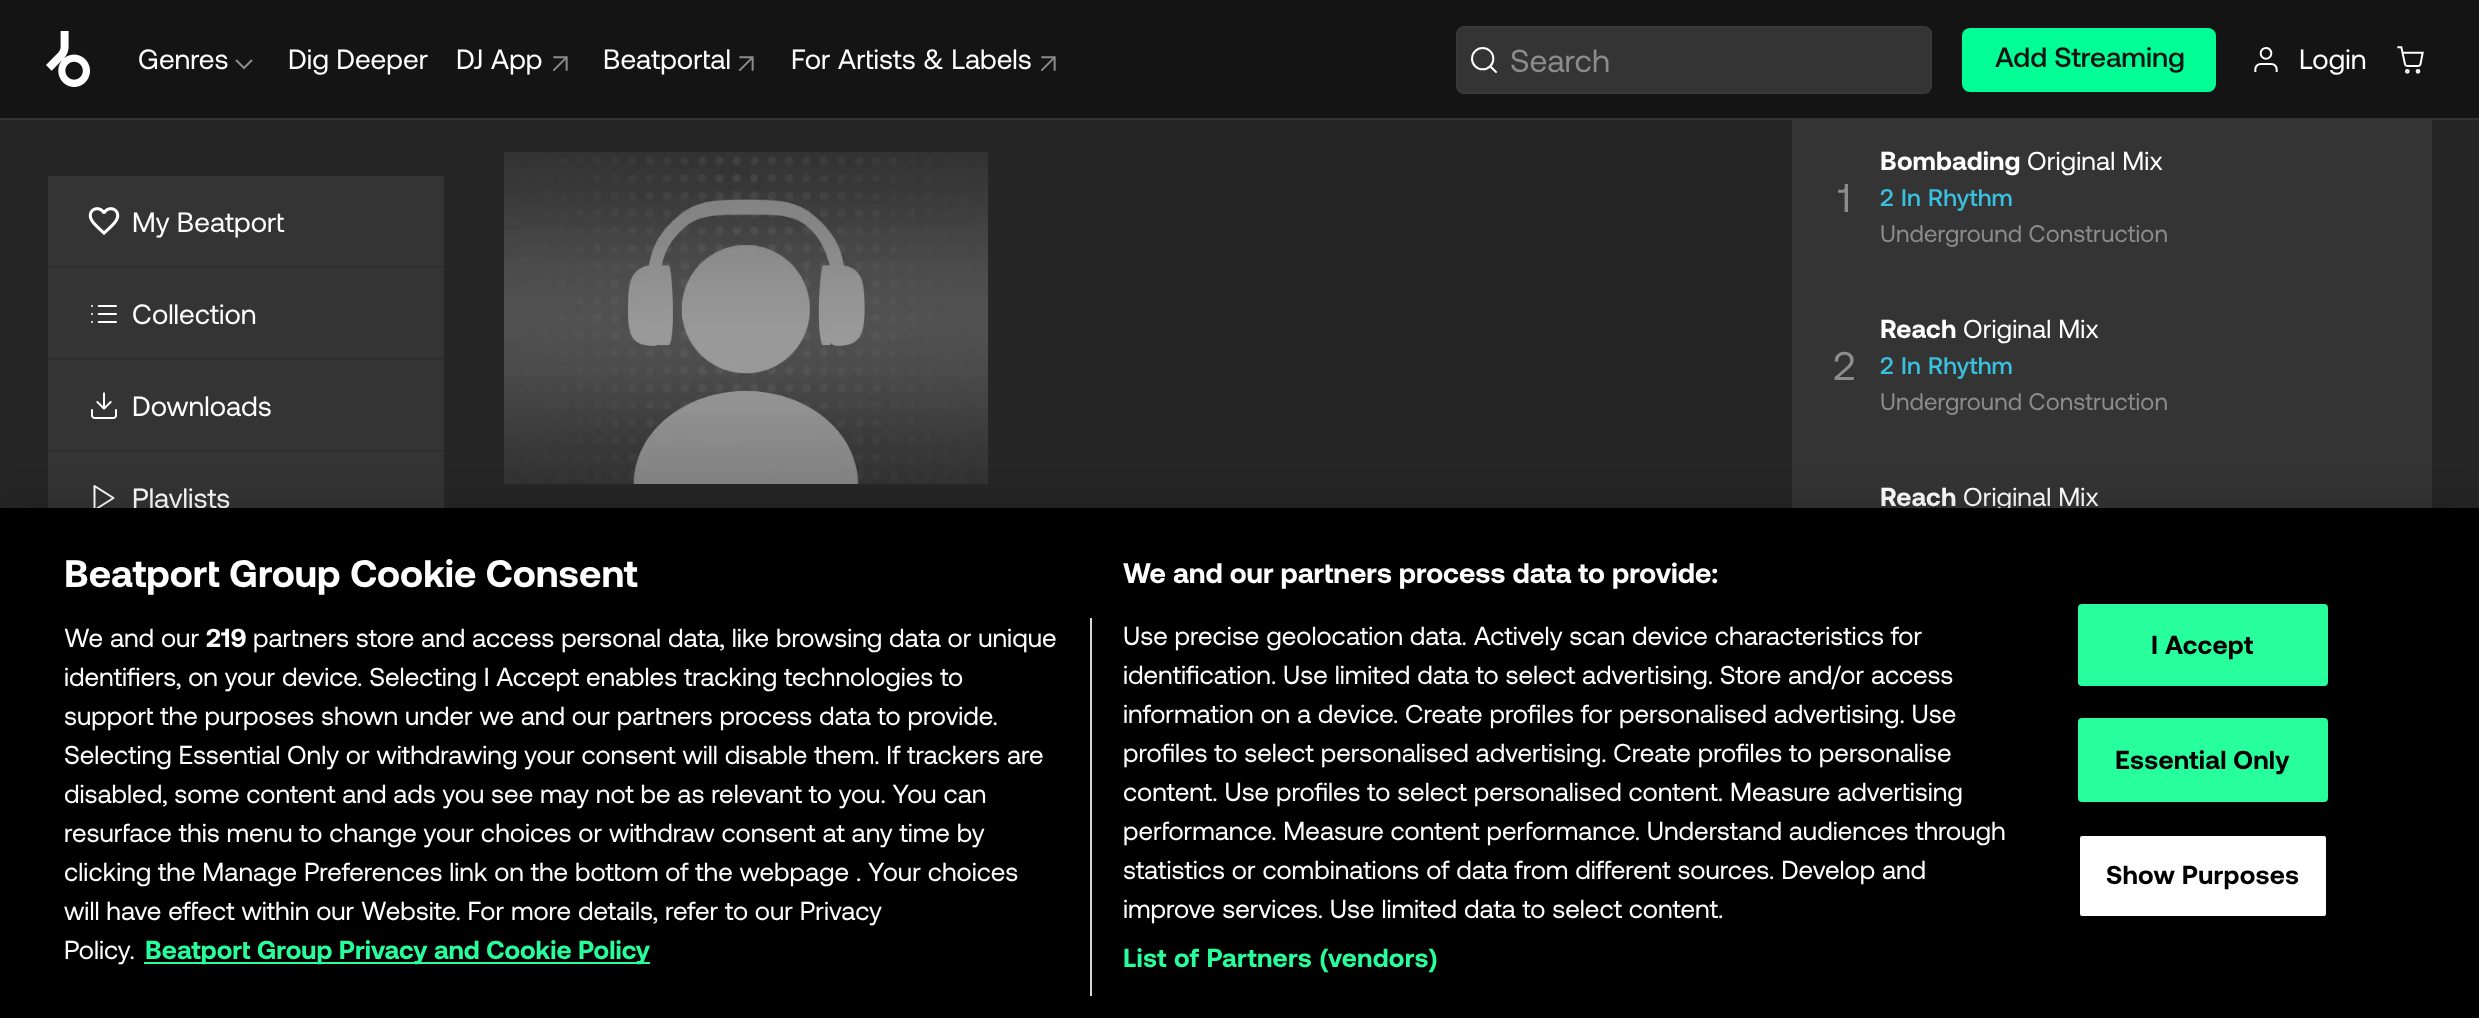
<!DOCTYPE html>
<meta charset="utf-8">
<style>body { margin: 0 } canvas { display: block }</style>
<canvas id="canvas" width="2479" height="1018"></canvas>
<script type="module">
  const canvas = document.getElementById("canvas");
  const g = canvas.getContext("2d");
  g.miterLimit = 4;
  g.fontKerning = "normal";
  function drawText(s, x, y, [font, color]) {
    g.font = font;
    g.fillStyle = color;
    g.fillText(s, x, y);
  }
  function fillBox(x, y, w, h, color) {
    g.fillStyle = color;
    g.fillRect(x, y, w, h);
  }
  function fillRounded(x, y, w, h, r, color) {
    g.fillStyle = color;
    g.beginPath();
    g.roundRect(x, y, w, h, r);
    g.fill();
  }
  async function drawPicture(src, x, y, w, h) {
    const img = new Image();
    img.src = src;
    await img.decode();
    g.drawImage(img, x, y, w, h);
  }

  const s1 = ["28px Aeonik", "#FFFFFF"];
  const s2 = ["32px Aeonik", "#8C8C8C"];
  const s3 = ["500 28px Aeonik", "#141414"];
  const s4 = ["40px Aeonik", "#8C8C8C"];
  const s5 = ["bold 26px Aeonik", "#FFFFFF"];
  const s6 = ["26px Aeonik", "#FFFFFF"];
  const s7 = ["500 24px Aeonik", "#39C0DE"];
  const s8 = ["24px Aeonik", "#8C8C8C"];
  const s9 = ["bold 38.4px Aeonik", "#FFFFFF"];
  const s10 = ["bold 28.2px Aeonik", "#FFFFFF"];
  const s11 = ["bold 26px Aeonik", "#27FF9C"];
  const s12 = ["bold 26px Aeonik", "#000000"];

  fillBox(0, 0, 2479, 1018, "#262626");
  fillBox(0, 0, 2479, 118, "#141414");
  fillBox(0, 118, 2479, 2, "#333333");
  await drawPicture("pic1.png", 46, 31, 44, 56);
  drawText("Genres", 138, 69, s1);
  await drawPicture("pic2.png", 235, 59, 18, 11);
  drawText("Dig Deeper", 288, 69, s1);
  drawText("DJ App", 456, 69, s1);
  await drawPicture("pic3.png", 552, 56, 16, 16);
  drawText("Beatportal", 603, 69, s1);
  await drawPicture("pic4.png", 738, 56, 16, 16);
  drawText("For Artists & Labels", 791, 69, s1);
  await drawPicture("pic3.png", 1040, 56, 16, 16);
  g.fillStyle = "#343434";
  g.beginPath();
  g.roundRect(1457, 27, 474, 66, 7);
  g.fill();
  g.strokeStyle = "#383838";
  g.lineWidth = 2;
  g.stroke();
  await drawPicture("pic5.png", 1471, 47, 26, 26);
  fillBox(1927, 28, 3, 64, "#343434");
  drawText("Search", 1510, 72, s2);
  fillRounded(1962, 28, 254, 64, 8, "#01FF95");
  drawText("Add Streaming", 1995, 67, s3);
  await drawPicture("pic6.png", 2254, 47, 24, 25);
  drawText("Login", 2299, 69, s1);
  await drawPicture("pic7.png", 2397, 46, 27, 28);
  fillBox(48, 176, 396, 332, "#343434");
  fillBox(48, 266, 396, 2, "#2D2D2D");
  await drawPicture("pic8.png", 88, 207, 32, 28);
  drawText("My Beatport", 132, 232, s1);
  fillBox(48, 358, 396, 2, "#2D2D2D");
  await drawPicture("pic9.png", 91, 305, 26, 18);
  drawText("Collection", 132, 324, s1);
  fillBox(48, 450, 396, 2, "#2D2D2D");
  await drawPicture("pic10.png", 91, 392, 26, 27);
  drawText("Downloads", 132, 416, s1);
  g.beginPath();
  g.moveTo(94.5, 486);
  g.lineTo(113.5, 498);
  g.lineTo(94.5, 510);
  g.closePath();
  g.strokeStyle = "#FFFFFF";
  g.lineCap = "round";
  g.lineJoin = "round";
  g.stroke();
  drawText("Playlists", 132, 508, s1);
  await drawPicture("pic11.png", 504, 152, 484, 332);
  fillBox(1792, 120, 640, 388, "#343434");
  drawText("1", 1838, 212, s4);
  g.letterSpacing = "0.1px";
  drawText("Bombading", 1880, 170, s5);
  drawText("Original Mix", 2027, 170, s6);
  g.wordSpacing = "1px";
  drawText("2 In Rhythm", 1880, 206, s7);
  g.wordSpacing = "0px";
  drawText("Underground Construction", 1880, 242, s8);
  g.letterSpacing = "0px";
  drawText("2", 1833, 380, s4);
  g.letterSpacing = "0.1px";
  drawText("Reach", 1880, 338, s5);
  drawText("Original Mix", 1963, 338, s6);
  g.wordSpacing = "1px";
  drawText("2 In Rhythm", 1880, 374, s7);
  g.wordSpacing = "0px";
  drawText("Underground Construction", 1880, 410, s8);
  drawText("Reach", 1880, 506, s5);
  drawText("Original Mix", 1963, 506, s6);
  g.fillStyle = "rgba(0, 0, 0, 0.2)";
  g.filter = "blur(18px)";
  g.beginPath();
  g.rect(0, 508, 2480, 510);
  g.fill();
  g.filter = "none";
  fillBox(0, 508, 2479, 510, "#000000");
  g.letterSpacing = "0px";
  drawText("Beatport Group Cookie Consent", 64, 587, s9);
  drawText("We and our partners process data to provide:", 1123, 583, s10);
  drawText("Use precise geolocation data. Actively scan device characteristics for", 1123, 645, s6);
  drawText("identification. Use limited data to select advertising. Store and/or access", 1123, 684, s6);
  drawText("information on a device. Create profiles for personalised advertising. Use", 1123, 723, s6);
  drawText("profiles to select personalised advertising. Create profiles to personalise", 1123, 762, s6);
  drawText("content. Use profiles to select personalised content. Measure advertising", 1123, 801, s6);
  drawText("performance. Measure content performance. Understand audiences through", 1123, 840, s6);
  drawText("statistics or combinations of data from different sources. Develop and", 1123, 879, s6);
  drawText("improve services. Use limited data to select content.", 1123, 918, s6);
  g.letterSpacing = "0.25px";
  g.wordSpacing = "0.5px";
  drawText("List of Partners (vendors)", 1123, 967, s11);
  fillBox(1090, 618, 2, 378, "#D8D8D8");
  g.letterSpacing = "0px";
  g.wordSpacing = "0px";
  drawText("We and our", 64, 647, s6);
  drawText("219", 206, 647, s5);
  drawText("partners store and access personal data, like browsing data or unique", 253, 647, s6);
  drawText("identifiers, on your device. Selecting I Accept enables tracking technologies to", 64, 686, s6);
  drawText("support the purposes shown under we and our partners process data to provide.", 64, 725, s6);
  drawText("Selecting Essential Only or withdrawing your consent will disable them. If trackers are", 64, 764, s6);
  drawText("disabled, some content and ads you see may not be as relevant to you. You can", 64, 803, s6);
  drawText("resurface this menu to change your choices or withdraw consent at any time by", 64, 842, s6);
  drawText("clicking the Manage Preferences link on the bottom of the webpage . Your choices", 64, 881, s6);
  drawText("will have effect within our Website. For more details, refer to our Privacy", 64, 920, s6);
  drawText("Policy.", 64, 959, s6);
  fillBox(144, 962, 506, 2, "#27FF9C");
  drawText("Beatport Group Privacy and Cookie Policy", 145, 959, s11);
  g.beginPath();
  g.roundRect(2079, 605, 248, 80, 3);
  g.fill();
  g.strokeStyle = "#27FF9C";
  g.lineJoin = "miter";
  g.stroke();
  g.letterSpacing = "0.25px";
  drawText("I Accept", 2151, 654, s12);
  g.fillStyle = "#27FF9C";
  g.beginPath();
  g.roundRect(2079, 719, 248, 82, 3);
  g.fill();
  g.stroke();
  drawText("Essential Only", 2115, 769, s12);
  g.fillStyle = "#FFFFFF";
  g.beginPath();
  g.roundRect(2079, 835, 248, 82, 3);
  g.fill();
  g.strokeStyle = "#000000";
  g.stroke();
  drawText("Show Purposes", 2106, 884, s12);
</script>
